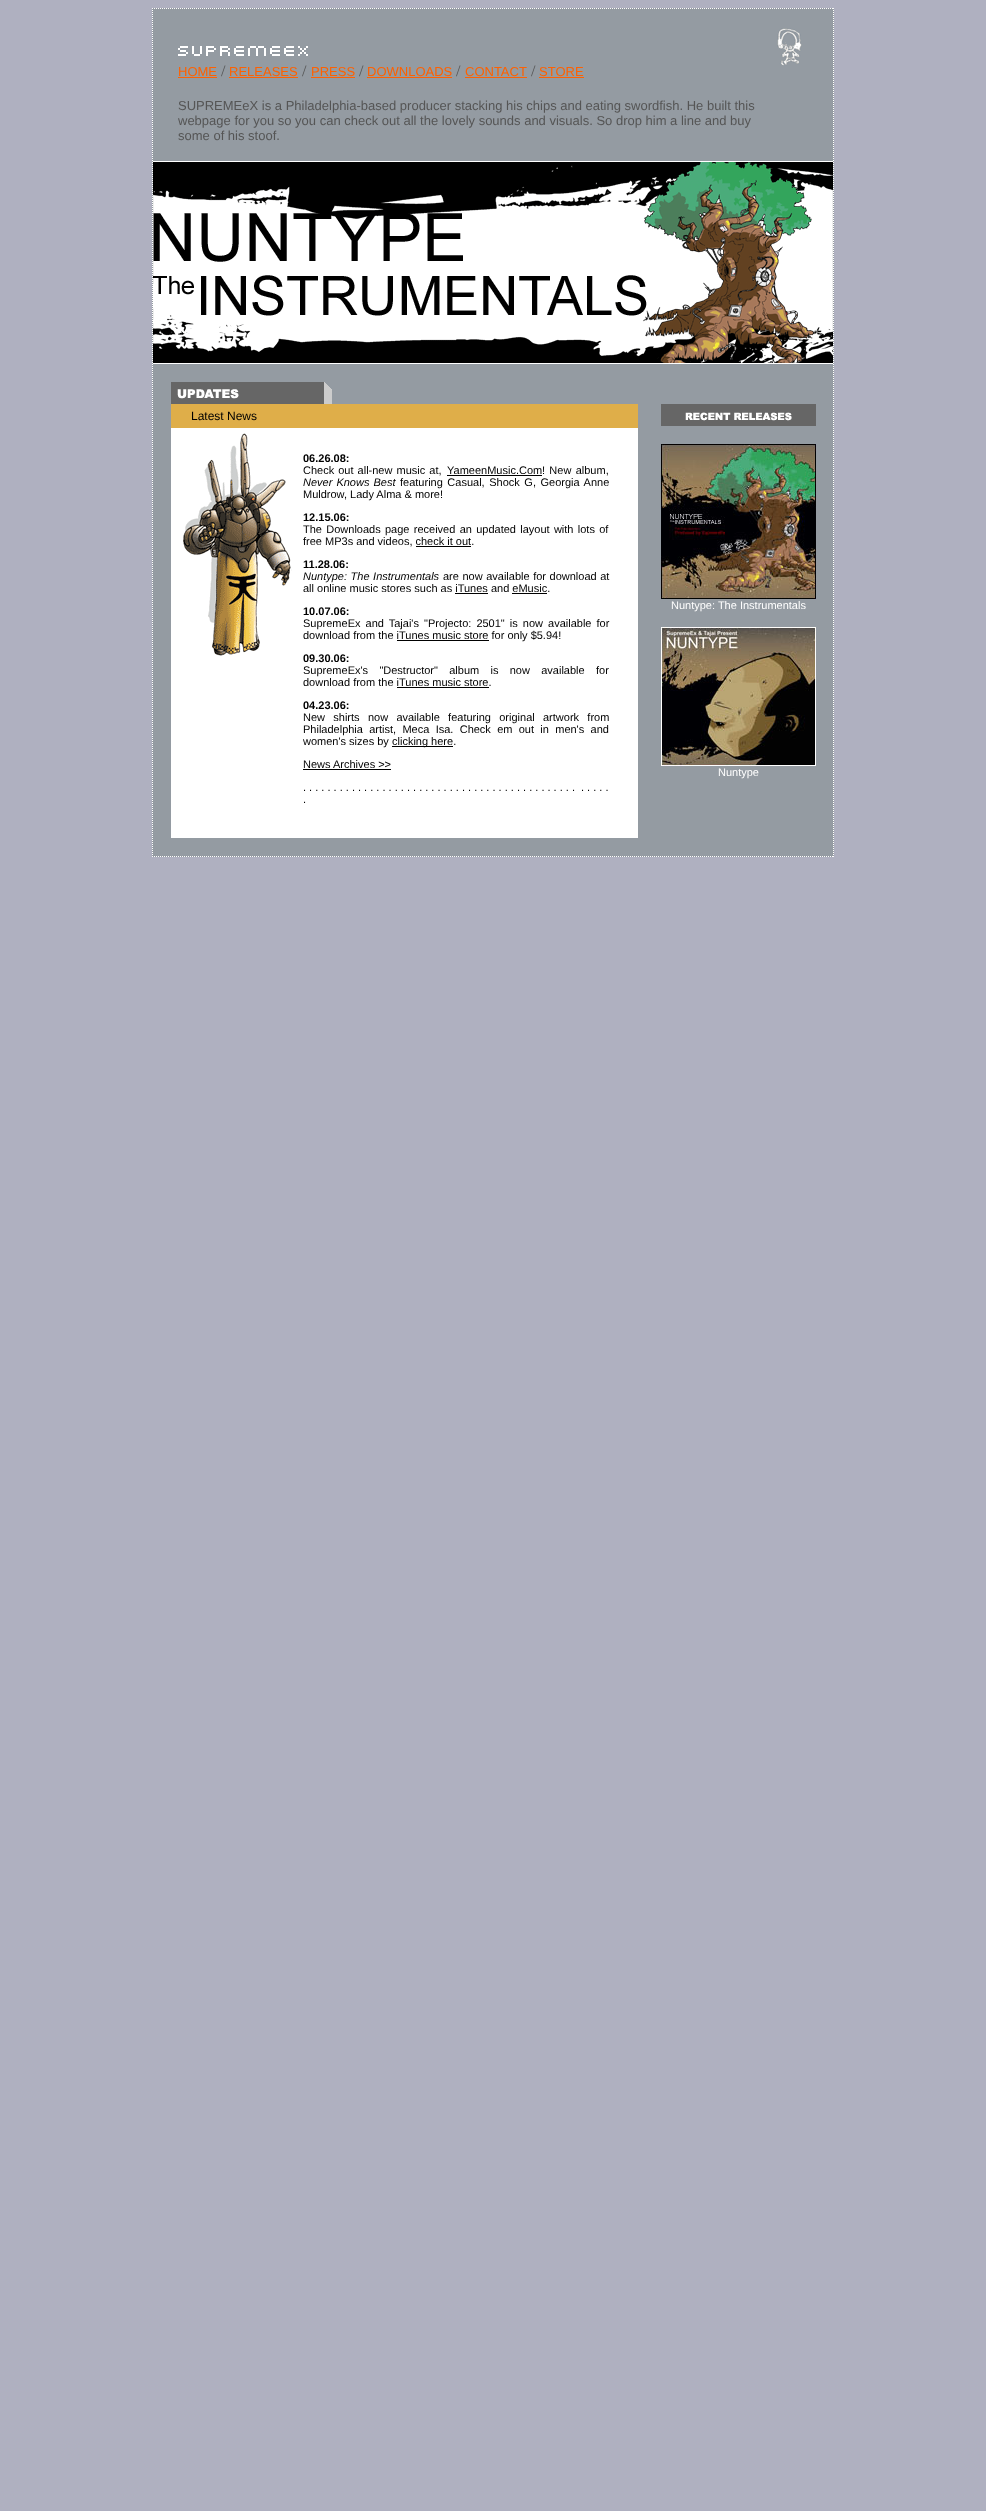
<!DOCTYPE html>
<meta charset="utf-8">
<style>body { margin: 0 } canvas { display: block }</style>
<canvas id="canvas" width="986" height="2511"></canvas>
<script type="module">
  const canvas = document.getElementById("canvas");
  const g = canvas.getContext("2d");
  g.miterLimit = 4;
  g.fontKerning = "normal";
  function drawText(s, x, y, [font, color]) {
    g.font = font;
    g.fillStyle = color;
    g.fillText(s, x, y);
  }
  function fillBox(x, y, w, h, color) {
    g.fillStyle = color;
    g.fillRect(x, y, w, h);
  }
  async function drawPicture(src, x, y, w, h) {
    const img = new Image();
    img.src = src;
    await img.decode();
    g.drawImage(img, x, y, w, h);
  }

  const s1 = ["13px Liberation Sans", "#FE6101"];
  const s2 = ["16px Liberation Serif", "#555555"];
  const s3 = ["13px Liberation Sans", "#555555"];
  const s4 = ["12px Liberation Sans", "#000000"];
  const s5 = ["bold 11px Liberation Sans", "#000000"];
  const s6 = ["11px Liberation Sans", "#000000"];
  const s7 = ["italic 11px Liberation Sans", "#000000"];
  const s8 = ["11px Liberation Sans", "#FFFFFF"];

  fillBox(0, 0, 986, 2511, "#AFB0C0");
  fillBox(152, 8, 682, 849, "#949BA2");
  g.beginPath();
  g.moveTo(152, 8.5);
  g.lineTo(834, 8.5);
  g.strokeStyle = "#FFFFFF";
  g.setLineDash([1, 1]);
  g.stroke();
  g.beginPath();
  g.moveTo(833.5, 8);
  g.lineTo(833.5, 857);
  g.stroke();
  g.beginPath();
  g.moveTo(152, 856.5);
  g.lineTo(834, 856.5);
  g.stroke();
  g.beginPath();
  g.moveTo(152.5, 8);
  g.lineTo(152.5, 857);
  g.stroke();
  await drawPicture("pic1.png", 178, 46, 130, 10);
  await drawPicture("pic2.png", 777, 28, 25, 38);
  drawText("HOME", 178, 76, s1);
  fillBox(178, 77, 39, 1, "#FE6101");
  drawText("/", 221, 76, s2);
  drawText("RELEASES", 229, 76, s1);
  fillBox(229, 77, 69, 1, "#FE6101");
  drawText("/", 302, 76, s2);
  drawText("PRESS", 311, 76, s1);
  fillBox(311, 77, 44, 1, "#FE6101");
  drawText("/", 359, 76, s2);
  drawText("DOWNLOADS", 367, 76, s1);
  fillBox(367, 77, 85, 1, "#FE6101");
  drawText("/", 456, 76, s2);
  drawText("CONTACT", 465, 76, s1);
  fillBox(465, 77, 62, 1, "#FE6101");
  drawText("/", 531, 76, s2);
  drawText("STORE", 539, 76, s1);
  fillBox(539, 77, 45, 1, "#FE6101");
  drawText("SUPREMEeX is a Philadelphia-based producer stacking his chips and eating swordfish. He built this", 178, 110, s3);
  drawText("webpage for you so you can check out all the lovely sounds and visuals. So drop him a line and buy", 178, 125, s3);
  drawText("some of his stoof.", 178, 140, s3);
  await drawPicture("pic3.png", 153, 161, 680, 203);
  await drawPicture("pic4.png", 171, 382, 161, 22);
  fillBox(171, 404, 467, 24, "#DFAE49");
  drawText("Latest News", 191, 420, s4);
  fillBox(171, 428, 467, 398, "#FFFFFF");
  await drawPicture("pic5.png", 183, 433, 109, 223);
  drawText("06.26.08:", 303, 462, s5);
  g.wordSpacing = "1px";
  drawText("Check out all-new music at,", 303, 474, s6);
  g.wordSpacing = "0px";
  drawText("YameenMusic.Com", 447, 474, s6);
  fillBox(447, 475, 95, 1, "#000000");
  g.wordSpacing = "1.25px";
  drawText("! New album,", 542, 474, s6);
  g.wordSpacing = "1px";
  drawText("Never Knows Best", 303, 486, s7);
  g.wordSpacing = "1.5px";
  drawText("featuring Casual, Shock G, Georgia Anne", 400, 486, s6);
  g.wordSpacing = "0px";
  drawText("Muldrow, Lady Alma & more!", 303, 498, s6);
  drawText("12.15.06:", 303, 521, s5);
  g.wordSpacing = "1.25px";
  drawText("The Downloads page received an updated layout with lots of", 303, 533, s6);
  g.wordSpacing = "0px";
  drawText("free MP3s and videos, check it out.", 303, 545, s6);
  fillBox(416, 546, 55, 1, "#000000");
  drawText("11.28.06:", 303, 568, s5);
  g.wordSpacing = "0.5px";
  drawText("Nuntype: The Instrumentals", 303, 580, s7);
  drawText("are now available for download at", 443, 580, s6);
  g.wordSpacing = "0px";
  drawText("all online music stores such as iTunes and eMusic.", 303, 592, s6);
  fillBox(455, 593, 33, 1, "#000000");
  fillBox(512, 593, 35, 1, "#000000");
  drawText("10.07.06:", 303, 615, s5);
  g.wordSpacing = "2px";
  drawText("SupremeEx and Tajai's \"Projecto: 2501\" is now available for", 303, 627, s6);
  g.wordSpacing = "0px";
  drawText("download from the iTunes music store for only $5.94!", 303, 639, s6);
  fillBox(397, 640, 92, 1, "#000000");
  drawText("09.30.06:", 303, 662, s5);
  g.wordSpacing = "8.25px";
  drawText("SupremeEx's \"Destructor\" album is now available for", 303, 674, s6);
  g.wordSpacing = "0px";
  drawText("download from the iTunes music store.", 303, 686, s6);
  fillBox(397, 687, 92, 1, "#000000");
  drawText("04.23.06:", 303, 709, s5);
  g.wordSpacing = "5.25px";
  drawText("New shirts now available featuring original artwork from", 303, 721, s6);
  g.wordSpacing = "3.25px";
  drawText("Philadelphia artist, Meca Isa. Check em out in men's and", 303, 733, s6);
  g.wordSpacing = "0px";
  drawText("women's sizes by", 303, 745, s6);
  fillBox(392, 746, 61, 1, "#000000");
  drawText("clicking here.", 392, 745, s6);
  drawText("News Archives >>", 303, 768, s6);
  fillBox(303, 769, 88, 1, "#000000");
  drawText(". . . . . . . . . . . . . . . . . . . . . . . . . . . . . . . . . . . . . . . . . . . . .", 303, 791, s6);
  drawText(". . . . .", 581, 791, s6);
  drawText(".", 303, 803, s6);
  fillBox(171, 826, 467, 12, "#FFFFFF");
  await drawPicture("pic6.png", 661, 404, 155, 22);
  await drawPicture("pic7.png", 661, 444, 155, 155);
  drawText("Nuntype: The Instrumentals", 671, 609, s8);
  await drawPicture("pic8.png", 661, 627, 155, 139);
  drawText("Nuntype", 718, 776, s8);
</script>
